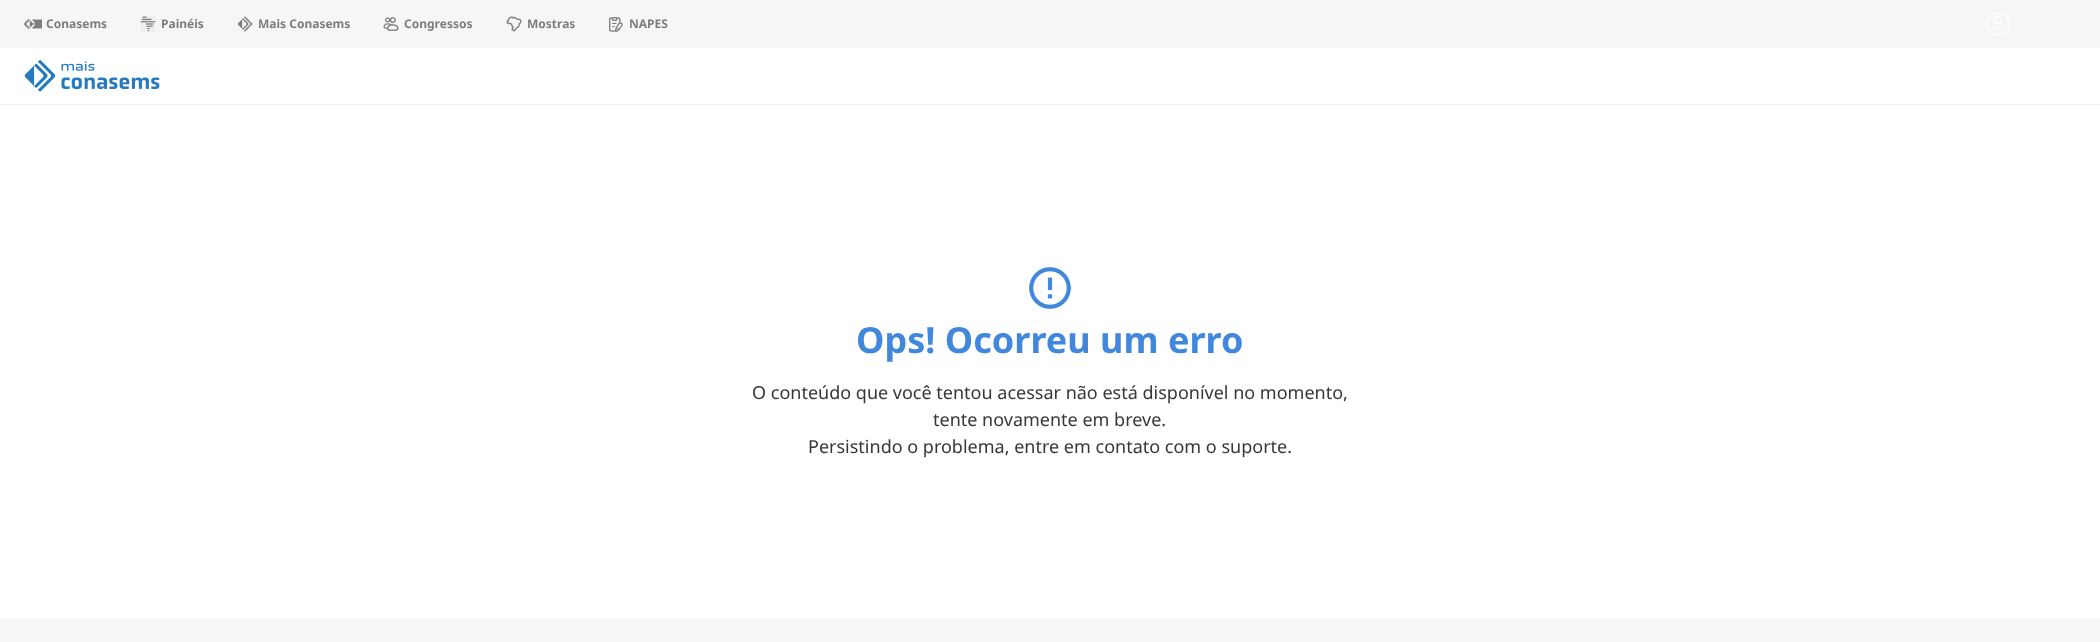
<!DOCTYPE html>
<meta charset="utf-8">
<style>body { margin: 0 } canvas { display: block }</style>
<canvas id="canvas" width="2100" height="642"></canvas>
<script type="module">
  const canvas = document.getElementById("canvas");
  const g = canvas.getContext("2d");
  g.miterLimit = 4;
  g.fontKerning = "normal";
  function drawText(s, x, y, [font, color]) {
    g.font = font;
    g.fillStyle = color;
    g.fillText(s, x, y);
  }
  function fillBox(x, y, w, h, color) {
    g.fillStyle = color;
    g.fillRect(x, y, w, h);
  }
  async function drawPicture(src, x, y, w, h) {
    const img = new Image();
    img.src = src;
    await img.decode();
    g.drawImage(img, x, y, w, h);
  }

  const s1 = ["bold 12px Noto Sans", "#7E7E7E"];
  const s2 = ["bold 36px Noto Sans", "#4188DC"];
  const s3 = ["18px Noto Sans", "#35373B"];

  fillBox(0, 0, 2100, 642, "#FFFFFF");
  fillBox(0, 0, 2100, 48, "#F6F6F6");
  await drawPicture("pic1.png", 24, 19, 18, 10);
  drawText("Conasems", 46, 28, s1);
  await drawPicture("pic2.png", 140, 16, 16, 16);
  drawText("Painéis", 161, 28, s1);
  await drawPicture("pic3.png", 237, 16, 16, 16);
  drawText("Mais Conasems", 258, 28, s1);
  await drawPicture("pic4.png", 383, 17, 16, 14);
  drawText("Congressos", 404, 28, s1);
  await drawPicture("pic5.png", 506, 16, 16, 16);
  drawText("Mostras", 527, 28, s1);
  await drawPicture("pic6.png", 609, 17, 14, 15);
  drawText("NAPES", 629, 28, s1);
  await drawPicture("pic7.png", 1986, 12, 24, 24);
  fillBox(0, 104, 2100, 1, "#F1F1F1");
  await drawPicture("pic8.png", 24, 60, 136, 32);
  await drawPicture("pic9.png", 1029, 267, 42, 42);
  drawText("Ops! Ocorreu um erro", 856, 353, s2);
  drawText("O conteúdo que você tentou acessar não está disponível no momento,", 752, 399, s3);
  drawText("tente novamente em breve.", 933, 426, s3);
  drawText("Persistindo o problema, entre em contato com o suporte.", 808, 453, s3);
  fillBox(0, 619, 2100, 23, "#F6F6F6");
</script>
